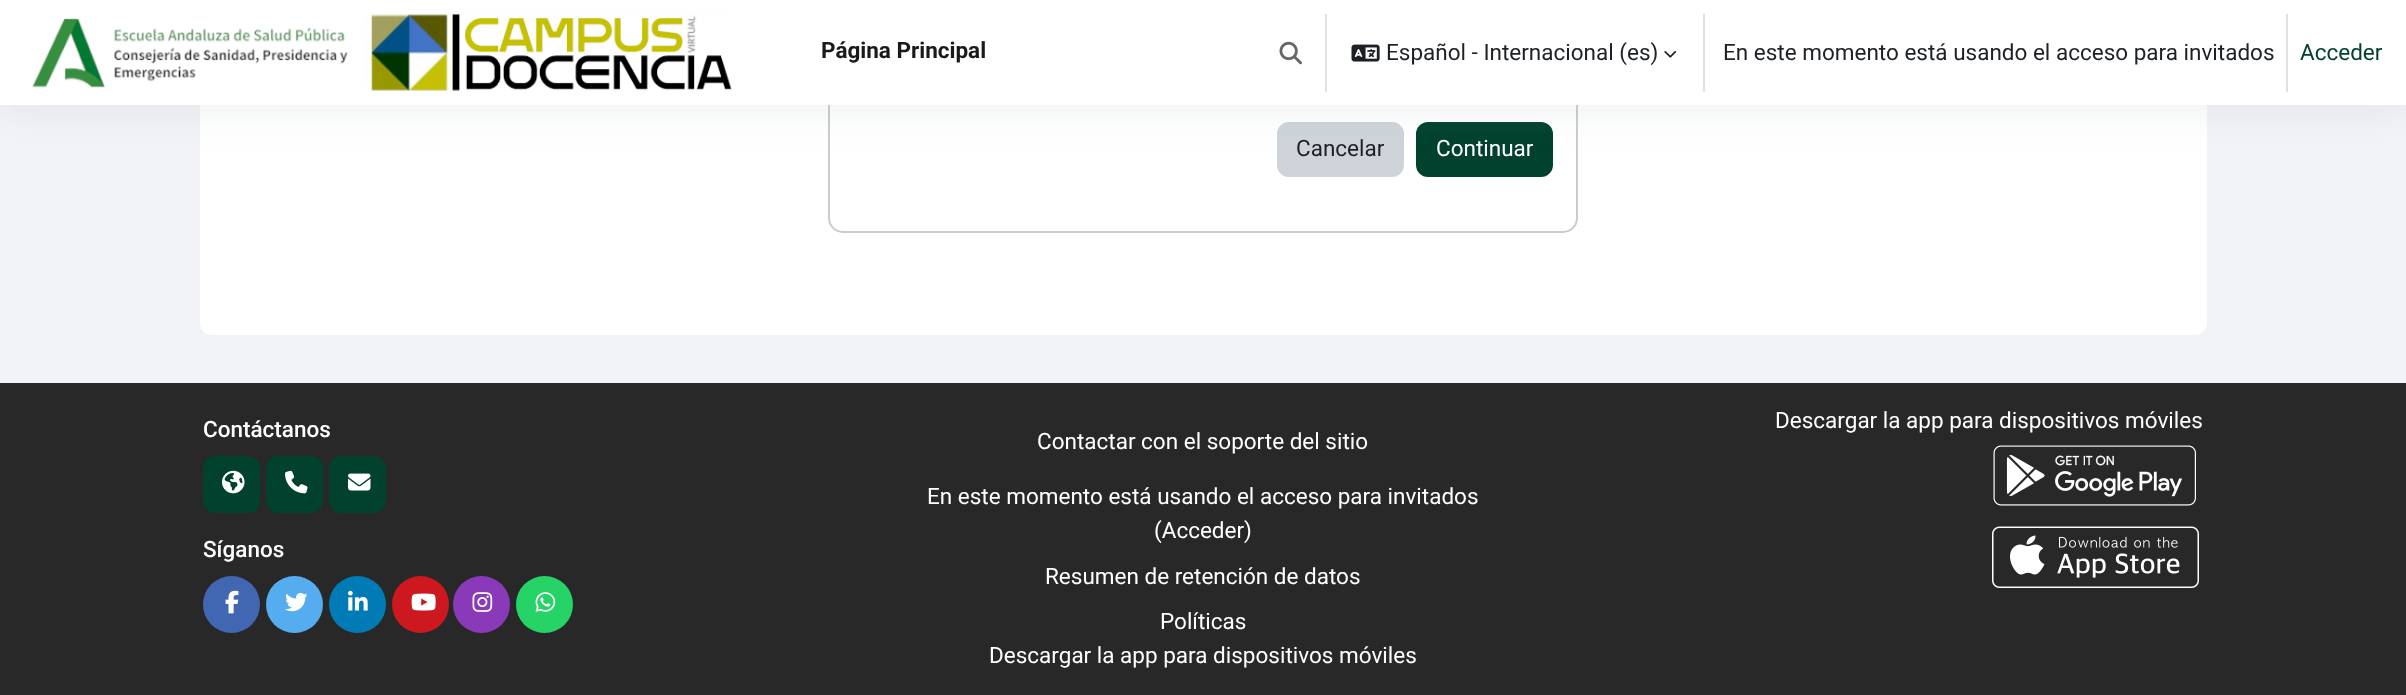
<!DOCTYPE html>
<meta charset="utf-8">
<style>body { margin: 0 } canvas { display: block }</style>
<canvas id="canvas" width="2406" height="695"></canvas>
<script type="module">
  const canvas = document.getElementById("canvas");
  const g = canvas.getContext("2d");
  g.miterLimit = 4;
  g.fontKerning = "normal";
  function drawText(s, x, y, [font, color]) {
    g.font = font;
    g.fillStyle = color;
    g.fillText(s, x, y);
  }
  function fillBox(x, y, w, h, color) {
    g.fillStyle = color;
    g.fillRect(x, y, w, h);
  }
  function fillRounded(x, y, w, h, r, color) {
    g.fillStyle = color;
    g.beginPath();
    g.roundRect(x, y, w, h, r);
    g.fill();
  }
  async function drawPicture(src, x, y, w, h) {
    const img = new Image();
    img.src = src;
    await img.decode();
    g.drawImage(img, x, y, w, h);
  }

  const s1 = ["bold 22.5px Roboto", "#1A1A1A"];
  const s2 = ["22.5px Roboto", "#1D2125"];
  const s3 = ["22.5px Roboto", "#01412E"];
  const s4 = ["22.5px Roboto", "#FFFFFF"];
  const s5 = ["500 22.5px Roboto", "#FFFFFF"];

  fillBox(0, 0, 2406, 695, "#F2F3F7");
  fillRounded(200, -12, 2007, 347, 12, "#FFFFFF");
  g.beginPath();
  g.roundRect(829, -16, 748, 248, 14);
  g.strokeStyle = "#CCCCCC";
  g.lineWidth = 2;
  g.stroke();
  g.fillStyle = "#CED4DA";
  g.beginPath();
  g.roundRect(1278, 123, 125, 53, 11);
  g.fill();
  g.strokeStyle = "#CED4DA";
  g.stroke();
  g.fillStyle = "#01412E";
  g.beginPath();
  g.roundRect(1417, 123, 135, 53, 11);
  g.fill();
  g.strokeStyle = "#01412E";
  g.stroke();
  g.fillStyle = "rgba(140, 152, 164, 0.13)";
  g.filter = "blur(18px)";
  g.beginPath();
  g.rect(0, 9, 2406, 105);
  g.fill();
  g.filter = "none";
  fillBox(0, 0, 2406, 105, "#FFFFFF");
  await drawPicture("pic1.png", 32, 14, 700, 78);
  drawText("Página Principal", 821, 58, s1);
  await drawPicture("pic2.png", 1279, 41, 23, 24);
  fillBox(1325, 14, 2, 78, "#DEE2E6");
  await drawPicture("pic3.png", 1351, 44, 29, 18);
  drawText("Español - Internacional (es)", 1386, 60, s2);
  await drawPicture("pic4.png", 1664, 51, 13, 7);
  fillBox(1703, 14, 2, 78, "#DEE2E6");
  drawText("En este momento está usando el acceso para invitados", 1723, 60, s2);
  fillBox(2286, 14, 2, 78, "#DEE2E6");
  drawText("Acceder", 2300, 60, s3);
  drawText("Cancelar", 1296, 156, s2);
  drawText("Continuar", 1436, 156, s4);
  fillBox(0, 383, 2406, 312, "#282829");
  drawText("Contáctanos", 203, 437, s5);
  fillRounded(203, 456, 57, 57, 12, "#01412E");
  await drawPicture("pic5.png", 222, 470, 23, 24);
  fillRounded(266, 456, 57, 57, 12, "#01412E");
  await drawPicture("pic6.png", 285, 470, 23, 24);
  fillRounded(329, 456, 57, 57, 12, "#01412E");
  await drawPicture("pic7.png", 348, 473, 23, 18);
  drawText("Síganos", 203, 557, s5);
  g.fillStyle = "#4167B2";
  g.beginPath();
  g.arc(231.5, 604.5, 28.5, 0, Math.PI * 2);
  g.fill();
  await drawPicture("pic8.png", 225, 590, 14, 24);
  g.fillStyle = "#55ACEE";
  g.beginPath();
  g.arc(294.5, 604.5, 28.5, 0, Math.PI * 2);
  g.fill();
  await drawPicture("pic9.png", 285, 592, 23, 20);
  g.fillStyle = "#007BB5";
  g.beginPath();
  g.arc(357.5, 604.5, 28.5, 0, Math.PI * 2);
  g.fill();
  await drawPicture("pic10.png", 348, 590, 20, 21);
  g.fillStyle = "#CC181E";
  g.beginPath();
  g.arc(420.5, 604.5, 28.5, 0, Math.PI * 2);
  g.fill();
  await drawPicture("pic11.png", 411, 593, 25, 18);
  g.fillStyle = "#8A3AB9";
  g.beginPath();
  g.arc(481.5, 604.5, 28.5, 0, Math.PI * 2);
  g.fill();
  await drawPicture("pic12.png", 472, 592, 21, 20);
  g.fillStyle = "#25D366";
  g.beginPath();
  g.arc(544.5, 604.5, 28.5, 0, Math.PI * 2);
  g.fill();
  await drawPicture("pic13.png", 535, 592, 21, 20);
  drawText("Contactar con el soporte del sitio", 1037, 449, s4);
  drawText("En este momento está usando el acceso para invitados", 927, 504, s4);
  drawText("(Acceder)", 1154, 538, s4);
  drawText("Resumen de retención de datos", 1045, 584, s4);
  drawText("Políticas", 1160, 629, s4);
  drawText("Descargar la app para dispositivos móviles", 989, 663, s4);
  drawText("Descargar la app para dispositivos móviles", 1775, 428, s4);
  await drawPicture("pic14.png", 1993, 445, 203, 61);
  await drawPicture("pic15.png", 1992, 526, 207, 62);
</script>
